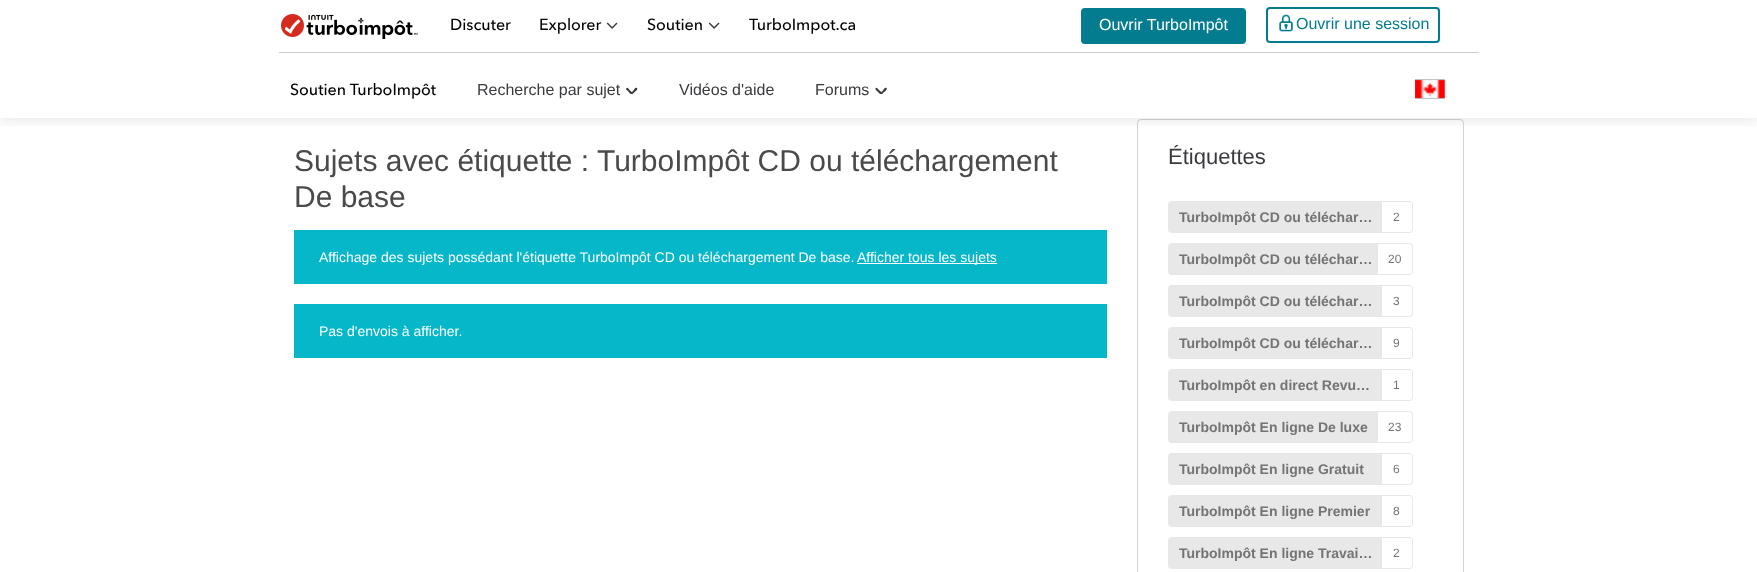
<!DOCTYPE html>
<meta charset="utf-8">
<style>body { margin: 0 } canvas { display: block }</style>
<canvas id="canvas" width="1757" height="572"></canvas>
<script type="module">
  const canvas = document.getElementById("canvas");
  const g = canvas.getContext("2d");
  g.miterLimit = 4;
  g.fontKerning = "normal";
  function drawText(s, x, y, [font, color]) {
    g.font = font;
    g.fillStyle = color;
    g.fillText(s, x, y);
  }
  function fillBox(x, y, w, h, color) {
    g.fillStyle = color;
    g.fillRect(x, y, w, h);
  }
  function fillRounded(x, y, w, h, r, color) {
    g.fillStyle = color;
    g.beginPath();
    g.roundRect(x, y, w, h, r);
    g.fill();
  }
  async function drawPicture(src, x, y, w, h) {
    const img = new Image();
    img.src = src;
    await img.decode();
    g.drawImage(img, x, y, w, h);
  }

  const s1 = ["500 16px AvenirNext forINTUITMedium", "#000000"];
  const s2 = ["16px Liberation Sans", "#FFFFFF"];
  const s3 = ["16px Liberation Sans", "#037C8F"];
  const s4 = ["16px Liberation Sans", "#393A3D"];
  const s5 = ["30px Liberation Sans", "#4A4A4A"];
  const s6 = ["14px Liberation Sans", "#FFFFFF"];
  const s7 = ["22px Liberation Sans", "#393A3D"];
  const s8 = ["bold 14px Liberation Sans", "#747474"];
  const s9 = ["12px Liberation Sans", "#747474"];

  fillBox(0, 0, 1757, 572, "#FFFFFF");
  g.beginPath();
  g.roundRect(1137.5, 119.5, 326, 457, 3.5);
  g.strokeStyle = "#D3D3D3";
  g.stroke();
  g.save();
  g.beginPath();
  g.rect(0, 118, 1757, 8);
  g.clip();
  g.fillStyle = "rgba(0, 0, 0, 0.08)";
  g.filter = "blur(6px)";
  g.beginPath();
  g.rect(0, 4, 1757, 118);
  g.fill();
  g.filter = "none";
  g.restore();
  await drawPicture("pic1.png", 281, 14, 137, 25);
  drawText("Discuter", 450, 30, s1);
  drawText("Explorer", 539, 30, s1);
  await drawPicture("pic2.png", 606, 22, 12, 7);
  drawText("Soutien", 647, 30, s1);
  await drawPicture("pic2.png", 708, 22, 12, 7);
  drawText("TurboImpot.ca", 749, 30, s1);
  fillRounded(1081, 8, 165, 36, 4, "#037C8F");
  drawText("Ouvrir TurboImpôt", 1099, 30, s2);
  g.beginPath();
  g.roundRect(1267, 8, 172, 34, 3);
  g.strokeStyle = "#037C8F";
  g.lineWidth = 2;
  g.stroke();
  await drawPicture("pic3.png", 1279, 14, 14, 18);
  drawText("Ouvrir une session", 1296, 29, s3);
  fillBox(279, 52, 1200, 1, "#CCCCCC");
  drawText("Soutien TurboImpôt", 290, 95, s1);
  drawText("Recherche par sujet", 477, 95, s4);
  g.beginPath();
  g.moveTo(628, 88);
  g.lineTo(630, 90.5);
  g.bezierCurveTo(630.5, 91, 633, 92.5, 632, 93.5);
  g.bezierCurveTo(631, 95.5, 628.5, 91.5, 628, 91);
  g.lineTo(626, 89.5);
  g.bezierCurveTo(626, 88.5, 627, 87.5, 628, 88);
  g.closePath();
  g.fill();
  g.beginPath();
  g.moveTo(631.5, 92.5);
  g.lineTo(633.5, 90.5);
  g.bezierCurveTo(634, 89.5, 635.5, 87, 637, 88);
  g.bezierCurveTo(638.5, 89, 635, 92, 634, 92.5);
  g.lineTo(632.5, 94);
  g.bezierCurveTo(631.5, 94.5, 630.5, 93, 631.5, 92.5);
  g.closePath();
  g.fill();
  drawText("Vidéos d'aide", 679, 95, s4);
  drawText("Forums", 815, 95, s4);
  g.beginPath();
  g.moveTo(877, 88);
  g.lineTo(879.5, 90.5);
  g.bezierCurveTo(880, 91, 882.5, 92.5, 881.5, 93.5);
  g.bezierCurveTo(880.5, 95.5, 878, 91.5, 877, 91);
  g.lineTo(875.5, 89.5);
  g.bezierCurveTo(875, 88.5, 876.5, 87.5, 877, 88);
  g.closePath();
  g.fill();
  g.beginPath();
  g.moveTo(881, 92.5);
  g.lineTo(883, 90.5);
  g.bezierCurveTo(883.5, 89.5, 885, 87, 886.5, 88);
  g.bezierCurveTo(888, 89, 884.5, 92, 883.5, 92.5);
  g.lineTo(882, 94);
  g.bezierCurveTo(881, 94.5, 880, 93, 881, 92.5);
  g.closePath();
  g.fill();
  await drawPicture("pic4.png", 1415, 79, 30, 20);
  drawText("Sujets avec étiquette : TurboImpôt CD ou téléchargement", 294, 171, s5);
  drawText("De base", 294, 207, s5);
  fillBox(294, 230, 813, 54, "#06B6C9");
  drawText("Affichage des sujets possédant l'étiquette TurboImpôt CD ou téléchargement De base.", 319, 262, s6);
  fillBox(857, 263, 140, 1, "#FFFFFF");
  drawText("Afficher tous les sujets", 857, 262, s6);
  fillBox(294, 304, 813, 54, "#06B6C9");
  drawText("Pas d'envois à afficher.", 319, 336, s6);
  drawText("Étiquettes", 1168, 164, s7);
  fillRounded(1168, 201, 245, 32, 4, "#E8E8E8");
  drawText("TurboImpôt CD ou téléchar…", 1179, 222, s8);
  g.fillStyle = "#FFFFFF";
  g.beginPath();
  g.roundRect(1382, 202, 30, 30, [0, 3, 3, 0]);
  g.fill();
  drawText("2", 1393, 221, s9);
  fillRounded(1168, 243, 245, 32, 4, "#E8E8E8");
  drawText("TurboImpôt CD ou téléchar…", 1179, 264, s8);
  g.fillStyle = "#FFFFFF";
  g.beginPath();
  g.roundRect(1378, 244, 34, 30, [0, 3, 3, 0]);
  g.fill();
  drawText("20", 1388, 263, s9);
  fillRounded(1168, 285, 245, 32, 4, "#E8E8E8");
  drawText("TurboImpôt CD ou téléchar…", 1179, 306, s8);
  g.fillStyle = "#FFFFFF";
  g.beginPath();
  g.roundRect(1382, 286, 30, 30, [0, 3, 3, 0]);
  g.fill();
  drawText("3", 1393, 305, s9);
  fillRounded(1168, 327, 245, 32, 4, "#E8E8E8");
  drawText("TurboImpôt CD ou téléchar…", 1179, 348, s8);
  g.fillStyle = "#FFFFFF";
  g.beginPath();
  g.roundRect(1382, 328, 30, 30, [0, 3, 3, 0]);
  g.fill();
  drawText("9", 1393, 347, s9);
  fillRounded(1168, 369, 245, 32, 4, "#E8E8E8");
  drawText("TurboImpôt en direct Revu…", 1179, 390, s8);
  g.fillStyle = "#FFFFFF";
  g.beginPath();
  g.roundRect(1382, 370, 30, 30, [0, 3, 3, 0]);
  g.fill();
  drawText("1", 1393, 389, s9);
  fillRounded(1168, 411, 245, 32, 4, "#E8E8E8");
  drawText("TurboImpôt En ligne De luxe", 1179, 432, s8);
  g.fillStyle = "#FFFFFF";
  g.beginPath();
  g.roundRect(1378, 412, 34, 30, [0, 3, 3, 0]);
  g.fill();
  drawText("23", 1388, 431, s9);
  fillRounded(1168, 453, 245, 32, 4, "#E8E8E8");
  drawText("TurboImpôt En ligne Gratuit", 1179, 474, s8);
  g.fillStyle = "#FFFFFF";
  g.beginPath();
  g.roundRect(1382, 454, 30, 30, [0, 3, 3, 0]);
  g.fill();
  drawText("6", 1393, 473, s9);
  fillRounded(1168, 495, 245, 32, 4, "#E8E8E8");
  drawText("TurboImpôt En ligne Premier", 1179, 516, s8);
  g.fillStyle = "#FFFFFF";
  g.beginPath();
  g.roundRect(1382, 496, 30, 30, [0, 3, 3, 0]);
  g.fill();
  drawText("8", 1393, 515, s9);
  fillRounded(1168, 537, 245, 32, 4, "#E8E8E8");
  drawText("TurboImpôt En ligne Travai…", 1179, 558, s8);
  g.fillStyle = "#FFFFFF";
  g.beginPath();
  g.roundRect(1382, 538, 30, 30, [0, 3, 3, 0]);
  g.fill();
  drawText("2", 1393, 557, s9);
</script>
